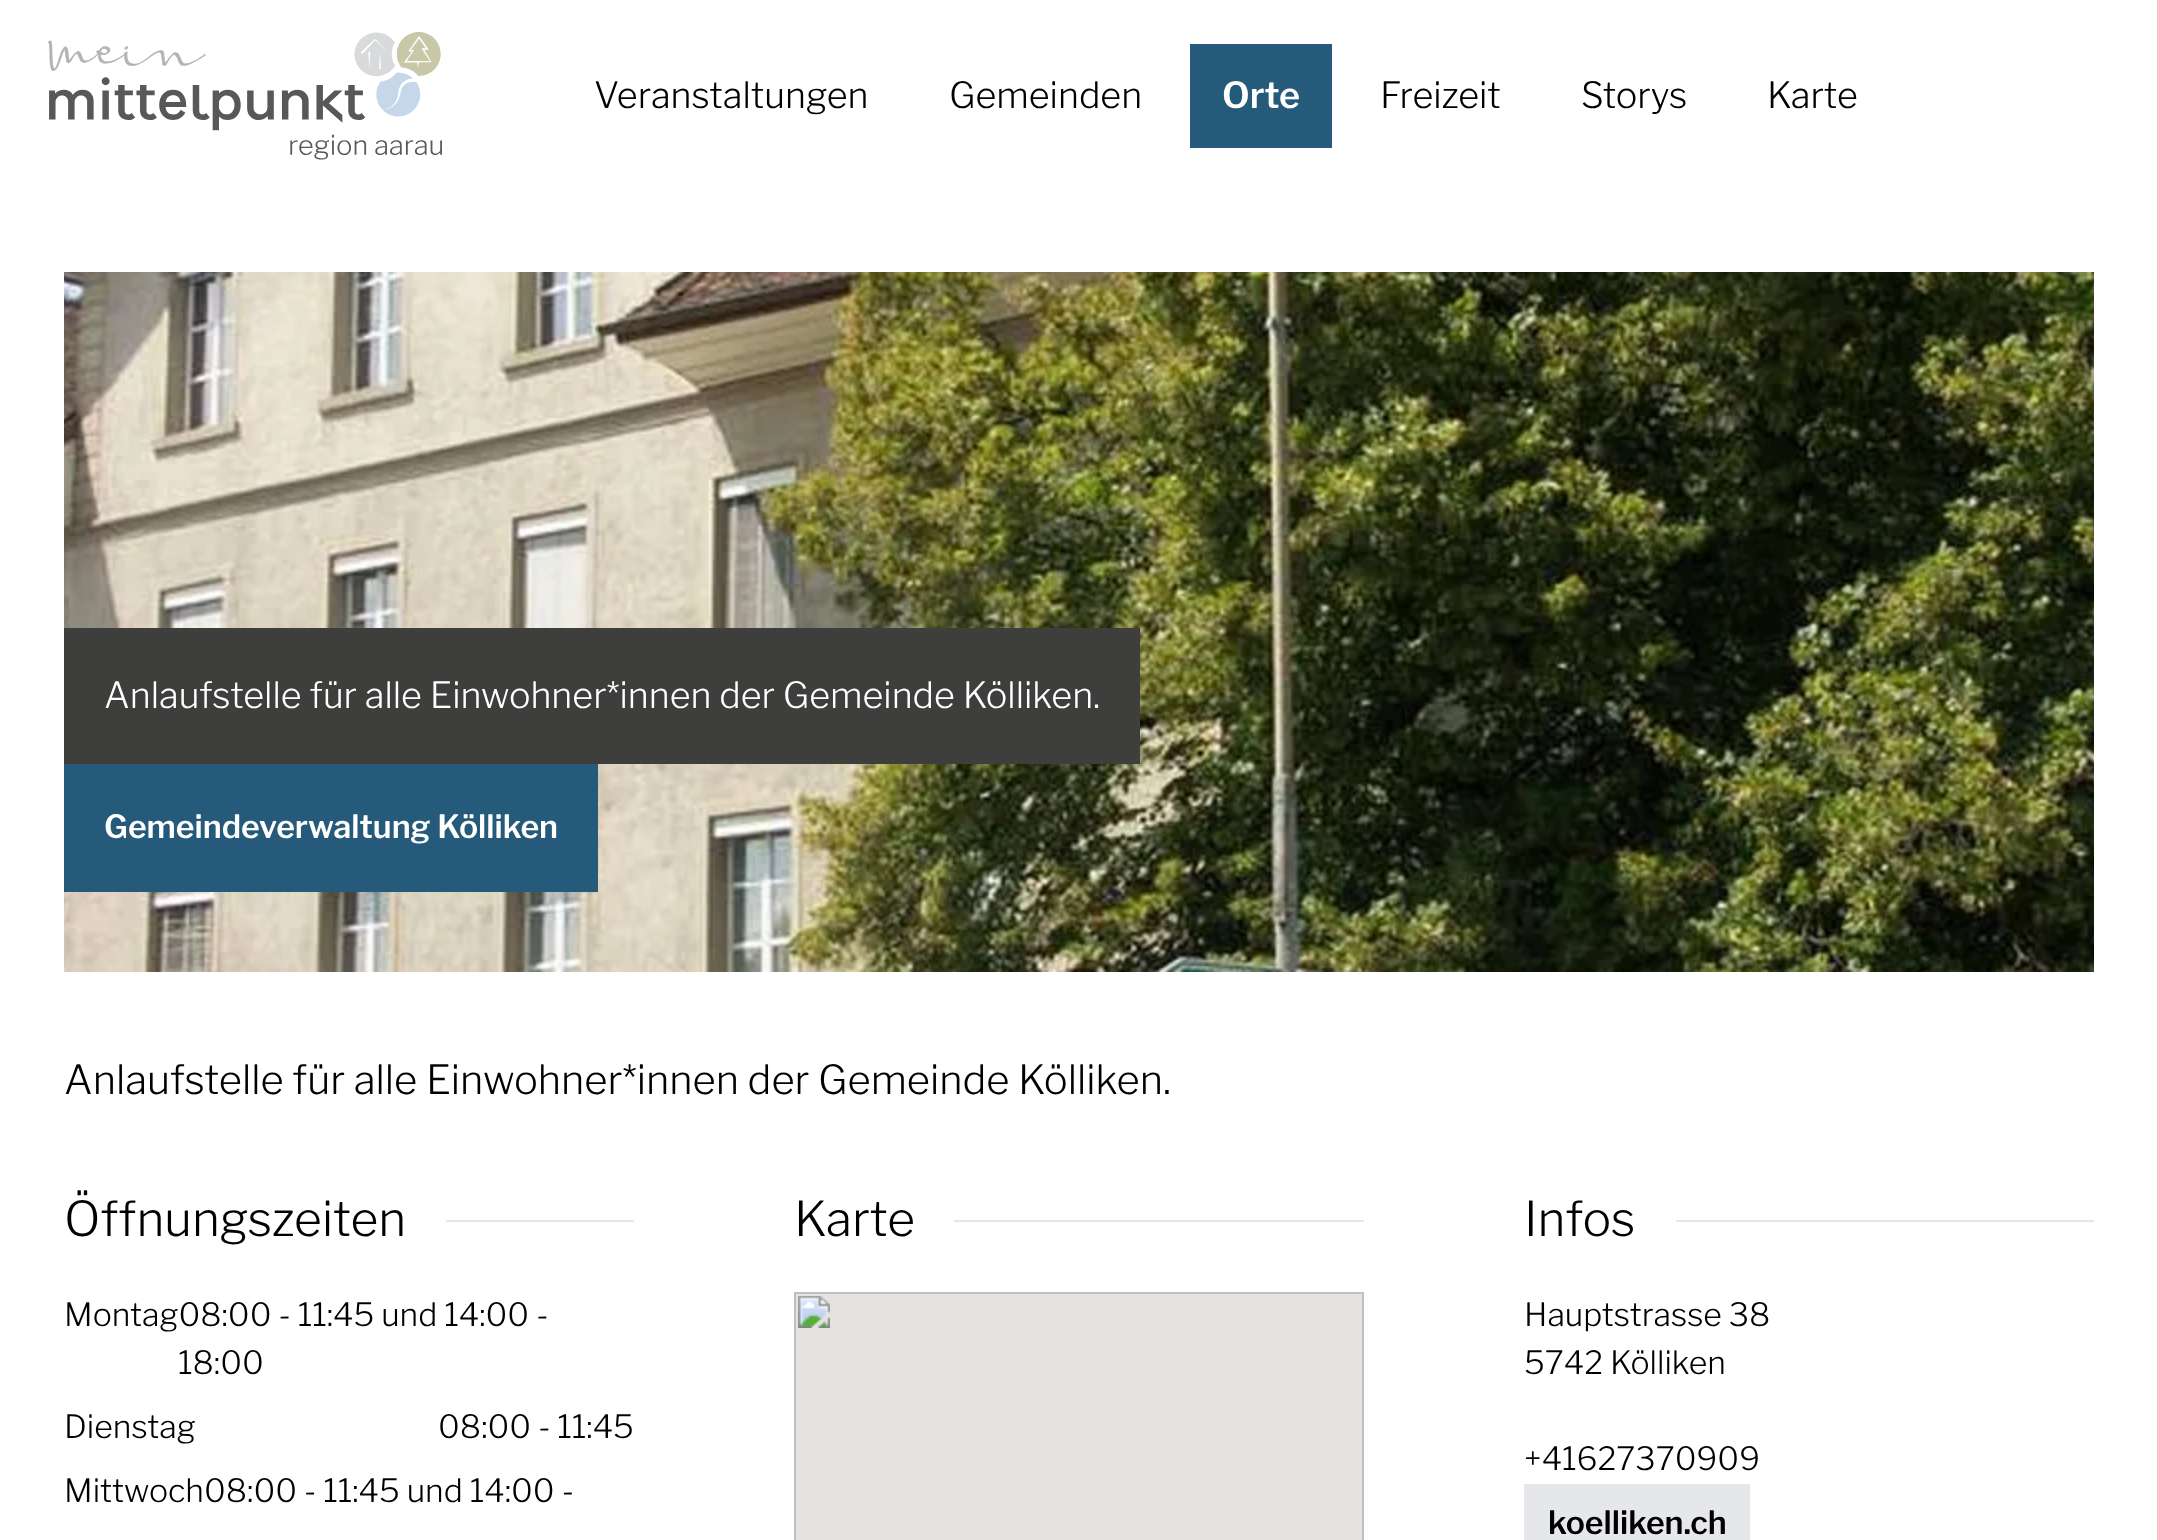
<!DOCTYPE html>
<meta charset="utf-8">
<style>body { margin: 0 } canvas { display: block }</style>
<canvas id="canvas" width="2157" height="1540"></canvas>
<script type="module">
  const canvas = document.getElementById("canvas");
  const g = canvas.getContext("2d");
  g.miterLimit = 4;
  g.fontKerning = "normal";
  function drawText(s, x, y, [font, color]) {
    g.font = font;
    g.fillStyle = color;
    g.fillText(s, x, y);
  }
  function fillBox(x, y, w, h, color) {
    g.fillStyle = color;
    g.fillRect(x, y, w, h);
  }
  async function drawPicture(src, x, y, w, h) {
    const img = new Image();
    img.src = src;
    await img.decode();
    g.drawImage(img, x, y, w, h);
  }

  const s1 = ["300 36px Libre Franklin", "#000000"];
  const s2 = ["600 36px Libre Franklin", "#FFFFFF"];
  const s3 = ["300 36px Libre Franklin", "#FFFFFF"];
  const s4 = ["600 32px Libre Franklin", "#FFFFFF"];
  const s5 = ["300 40px Libre Franklin", "#000000"];
  const s6 = ["300 48px Libre Franklin", "#000000"];
  const s7 = ["300 32px Libre Franklin", "#000000"];
  const s8 = ["600 32px Libre Franklin", "#000000"];

  fillBox(0, 0, 2157, 1540, "#FFFFFF");
  await drawPicture("pic1.png", 48, 32, 394, 128);
  drawText("Veranstaltungen", 594, 108, s1);
  drawText("Gemeinden", 949, 108, s1);
  fillBox(1190, 44, 142, 104, "#265A7B");
  drawText("Orte", 1222, 108, s2);
  drawText("Freizeit", 1380, 108, s1);
  drawText("Storys", 1581, 108, s1);
  drawText("Karte", 1767, 108, s1);
  await drawPicture("pic2.png", 64, 272, 2030, 700);
  fillBox(64, 628, 1076, 136, "#3E3E3D");
  drawText("Anlaufstelle für alle Einwohner*innen der Gemeinde Kölliken.", 104, 708, s3);
  fillBox(64, 764, 534, 128, "#265A7B");
  drawText("Gemeindeverwaltung Kölliken", 104, 838, s4);
  drawText("Anlaufstelle für alle Einwohner*innen der Gemeinde Kölliken.", 64, 1094, s5);
  drawText("Öffnungszeiten", 64, 1236, s6);
  fillBox(446, 1220, 188, 2, "#E5E7EB");
  drawText("Montag08:00 - 11:45 und 14:00 -", 64, 1326, s7);
  drawText("18:00", 178, 1374, s7);
  drawText("Dienstag", 64, 1438, s7);
  drawText("08:00 - 11:45", 438, 1438, s7);
  drawText("Mittwoch08:00 - 11:45 und 14:00 -", 64, 1502, s7);
  drawText("Karte", 794, 1236, s6);
  fillBox(954, 1220, 410, 2, "#E5E7EB");
  await drawPicture("pic3.png", 794, 1292, 570, 248);
  drawText("Infos", 1524, 1236, s6);
  fillBox(1676, 1220, 418, 2, "#E5E7EB");
  drawText("Hauptstrasse 38", 1524, 1326, s7);
  drawText("5742 Kölliken", 1524, 1374, s7);
  drawText("+41627370909", 1524, 1470, s7);
  fillBox(1524, 1484, 226, 56, "#E5E7EB");
  drawText("koelliken.ch", 1548, 1534, s8);
</script>
